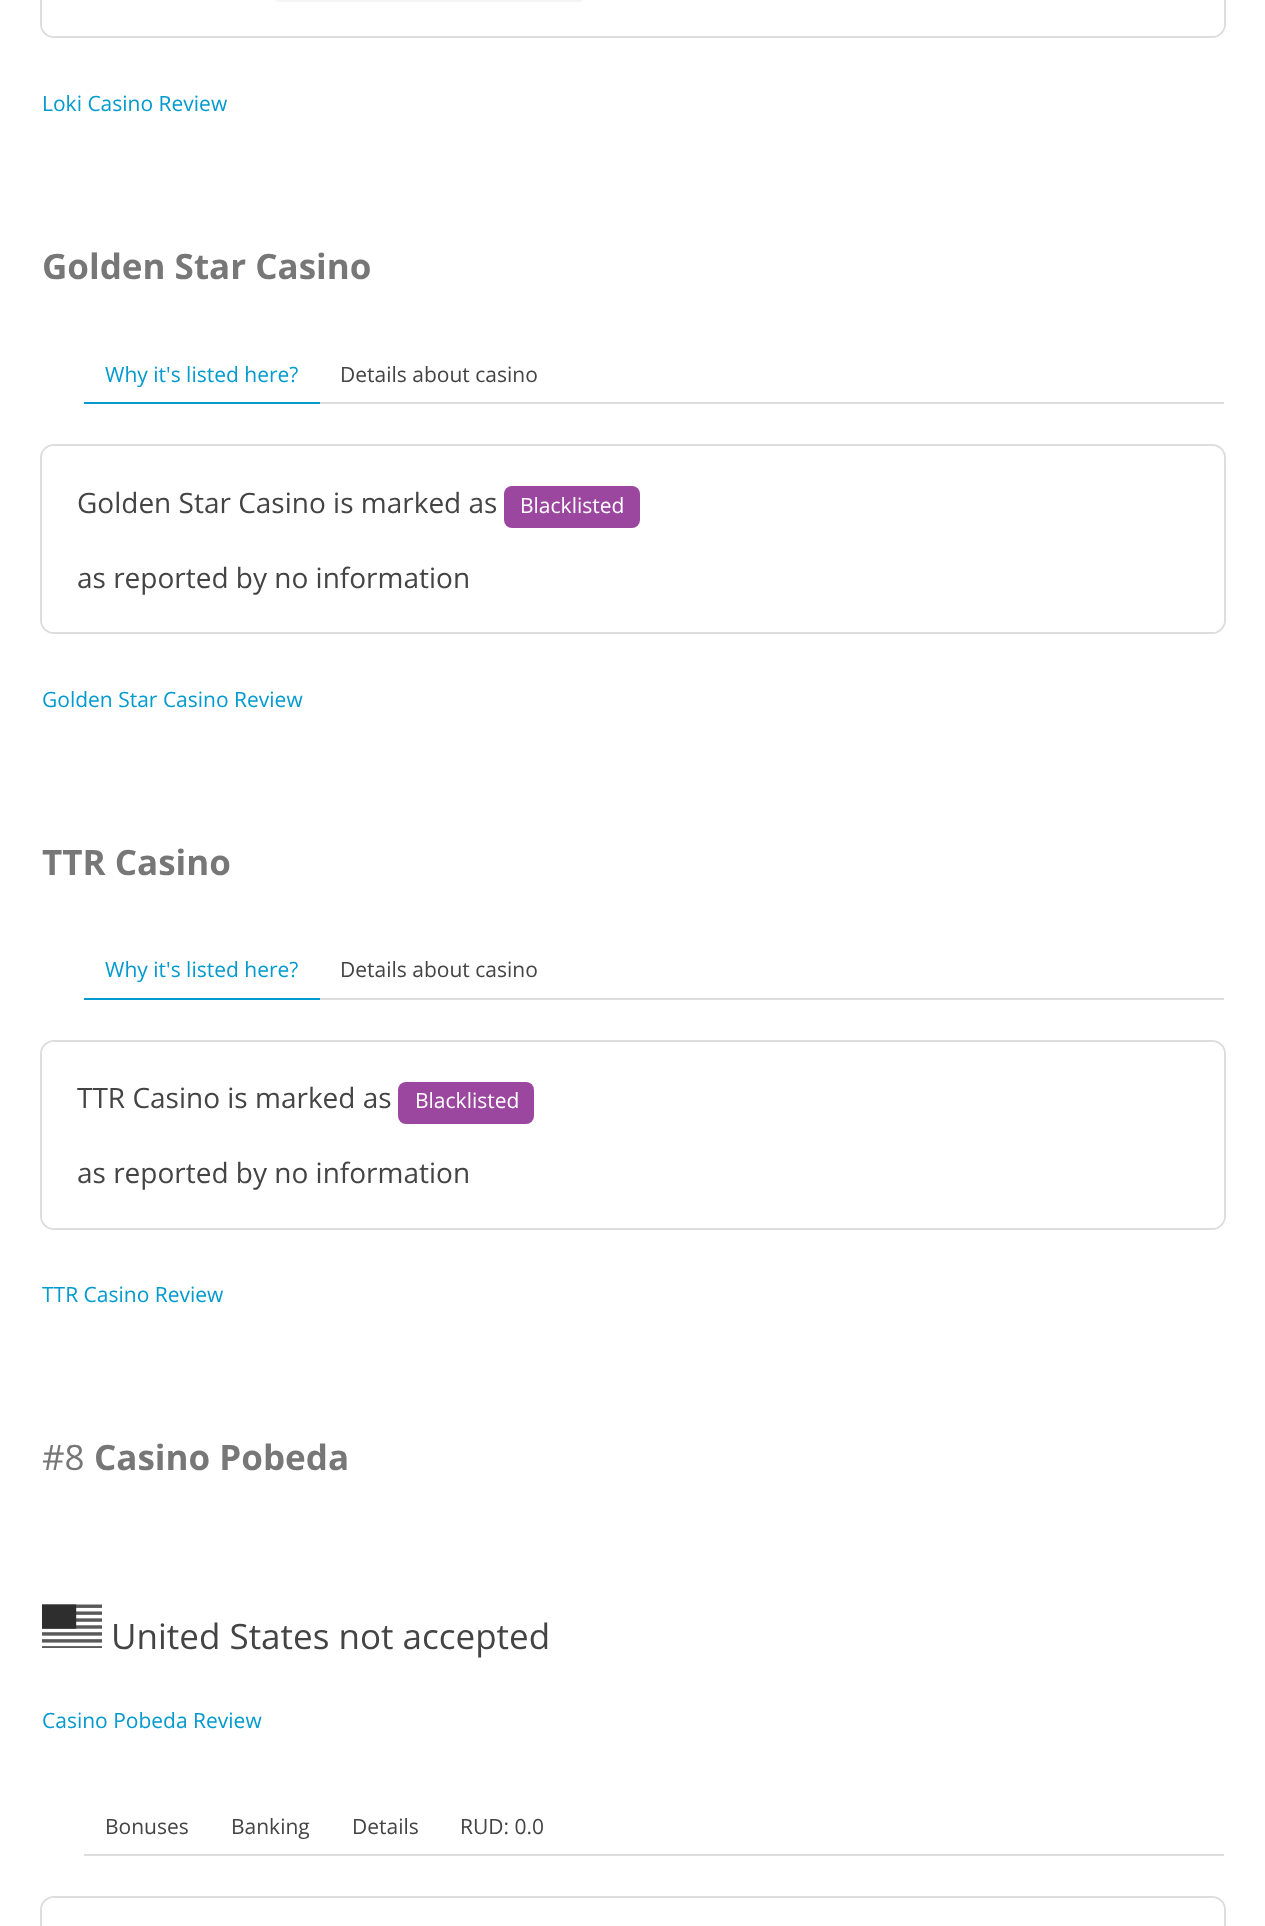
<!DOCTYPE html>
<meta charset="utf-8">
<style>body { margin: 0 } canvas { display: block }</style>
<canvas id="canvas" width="1265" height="1926"></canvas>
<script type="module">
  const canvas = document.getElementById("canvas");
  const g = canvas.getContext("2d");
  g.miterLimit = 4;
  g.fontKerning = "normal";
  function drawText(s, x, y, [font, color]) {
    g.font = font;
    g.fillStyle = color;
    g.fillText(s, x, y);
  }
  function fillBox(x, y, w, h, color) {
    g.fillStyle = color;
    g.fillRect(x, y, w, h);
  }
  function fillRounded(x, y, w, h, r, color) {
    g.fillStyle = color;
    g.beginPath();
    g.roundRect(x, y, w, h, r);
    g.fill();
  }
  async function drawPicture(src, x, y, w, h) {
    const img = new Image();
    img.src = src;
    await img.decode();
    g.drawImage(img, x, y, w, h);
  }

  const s1 = ["21px Open Sans", "#029ACF"];
  const s2 = ["bold 35px Open Sans", "#777777"];
  const s3 = ["21px Open Sans", "#444444"];
  const s4 = ["28px Open Sans", "#444444"];
  const s5 = ["21px Open Sans", "#FFFFFF"];
  const s6 = ["35px Open Sans", "#777777"];
  const s7 = ["35px Open Sans", "#444444"];

  fillBox(0, 0, 1265, 1926, "#FFFFFF");
  g.beginPath();
  g.roundRect(41, -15, 1184, 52, 13);
  g.strokeStyle = "#DDDDDD";
  g.lineWidth = 2;
  g.stroke();
  fillRounded(42, -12, 1182, 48, 12, "#FFFFFF");
  fillRounded(274, -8, 310, 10, 8, "#F5F5F5");
  drawText("Loki Casino Review", 42, 111, s1);
  drawText("Golden Star Casino", 42, 279, s2);
  fillBox(320, 402, 904, 2, "#DDDDDD");
  fillBox(84, 402, 236, 2, "#029ACF");
  drawText("Why it's listed here?", 105, 382, s1);
  drawText("Details about casino", 340, 382, s3);
  g.beginPath();
  g.roundRect(41, 445, 1184, 188, 13);
  g.stroke();
  fillRounded(42, 446, 1182, 186, 12, "#FFFFFF");
  drawText("Golden Star Casino is marked as", 77, 513, s4);
  fillRounded(504, 486, 136, 42, 8, "#9B479F");
  drawText("Blacklisted", 520, 513, s5);
  drawText("as reported by no information", 77, 588, s4);
  drawText("Golden Star Casino Review", 42, 707, s1);
  drawText("TTR Casino", 42, 875, s2);
  fillBox(320, 998, 904, 2, "#DDDDDD");
  fillBox(84, 998, 236, 2, "#029ACF");
  drawText("Why it's listed here?", 105, 977, s1);
  drawText("Details about casino", 340, 977, s3);
  g.beginPath();
  g.roundRect(41, 1041, 1184, 188, 13);
  g.stroke();
  fillRounded(42, 1042, 1182, 186, 12, "#FFFFFF");
  drawText("TTR Casino is marked as", 77, 1108, s4);
  fillRounded(398, 1082, 136, 42, 8, "#9B479F");
  drawText("Blacklisted", 415, 1108, s5);
  drawText("as reported by no information", 77, 1183, s4);
  drawText("TTR Casino Review", 42, 1302, s1);
  drawText("#8", 42, 1470, s6);
  drawText("Casino Pobeda", 94, 1470, s2);
  await drawPicture("pic1.png", 42, 1604, 60, 44);
  drawText("United States not accepted", 111, 1649, s7);
  drawText("Casino Pobeda Review", 42, 1728, s1);
  fillBox(84, 1854, 1140, 2, "#DDDDDD");
  drawText("Bonuses", 105, 1834, s3);
  drawText("Banking", 231, 1834, s3);
  drawText("Details", 352, 1834, s3);
  drawText("RUD: 0.0", 460, 1834, s3);
  g.beginPath();
  g.roundRect(41, 1897, 1184, 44, 13);
  g.stroke();
  fillRounded(42, 1898, 1182, 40, 12, "#FFFFFF");
</script>
